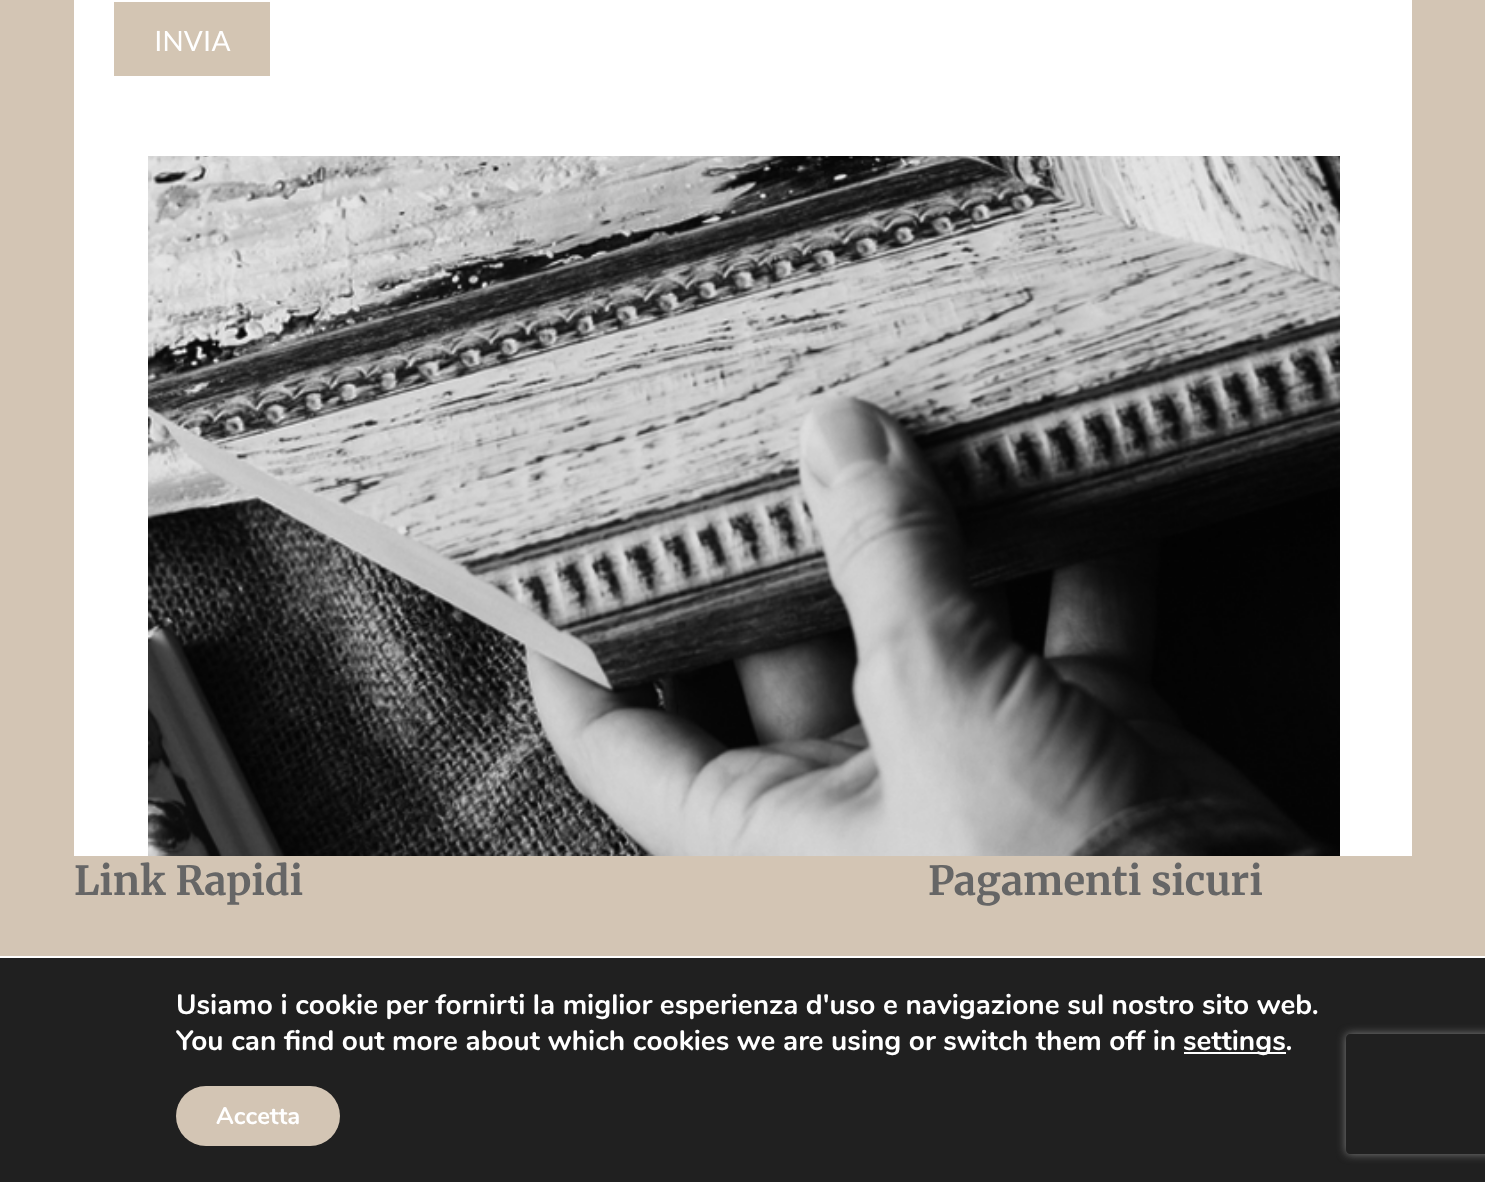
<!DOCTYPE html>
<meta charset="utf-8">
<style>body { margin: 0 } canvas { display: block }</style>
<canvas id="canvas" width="1485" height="1182"></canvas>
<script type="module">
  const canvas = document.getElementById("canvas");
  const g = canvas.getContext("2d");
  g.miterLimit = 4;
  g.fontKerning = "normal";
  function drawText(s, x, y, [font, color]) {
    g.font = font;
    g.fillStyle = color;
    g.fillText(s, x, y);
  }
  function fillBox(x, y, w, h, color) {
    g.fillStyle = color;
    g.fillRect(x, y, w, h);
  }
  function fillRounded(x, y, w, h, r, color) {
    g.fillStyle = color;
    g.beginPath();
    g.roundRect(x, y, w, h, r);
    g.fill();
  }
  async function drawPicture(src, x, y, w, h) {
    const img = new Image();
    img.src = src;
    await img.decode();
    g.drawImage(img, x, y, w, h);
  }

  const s1 = ["28px Lato", "#FFFFFF"];
  const s2 = ["300 40px Merriweather", "#666666"];
  const s3 = ["bold 28px Nunito", "#FFFFFF"];
  const s4 = ["bold 24px Nunito", "#FFFFFF"];

  fillBox(0, 0, 1485, 1182, "#D3C5B4");
  fillBox(74, 156, 1338, 700, "#FFFFFF");
  await drawPicture("pic1.png", 148, 156, 1192, 700);
  fillBox(74, 0, 1338, 156, "#FFFFFF");
  fillBox(114, 2, 156, 74, "#D3C5B3");
  drawText("INVIA", 154, 51, s1);
  drawText("Link Rapidi", 74, 895, s2);
  drawText("Pagamenti sicuri", 928, 895, s2);
  fillBox(0, 958, 1485, 224, "#202020");
  fillBox(0, 956, 1485, 2, "#FFFFFF");
  drawText("Usiamo i cookie per fornirti la miglior esperienza d'uso e navigazione sul nostro sito web.", 176, 1014, s3);
  drawText("You can find out more about which cookies we are using or switch them off in", 176, 1050, s3);
  fillBox(1184, 1052, 102, 2, "#FFFFFF");
  drawText("settings.", 1183, 1050, s3);
  fillRounded(176, 1086, 164, 60, 30, "#D3C5B4");
  drawText("Accetta", 216, 1124, s4);
  g.save();
  g.beginPath();
  g.moveTo(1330, 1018);
  g.lineTo(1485, 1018);
  g.lineTo(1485, 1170);
  g.lineTo(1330, 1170);
  g.closePath();
  g.moveTo(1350, 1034);
  g.lineTo(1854, 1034);
  g.bezierCurveTo(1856, 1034, 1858, 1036, 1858, 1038);
  g.lineTo(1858, 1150);
  g.bezierCurveTo(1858, 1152, 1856, 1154, 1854, 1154);
  g.lineTo(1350, 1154);
  g.bezierCurveTo(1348, 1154, 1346, 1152, 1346, 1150);
  g.lineTo(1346, 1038);
  g.bezierCurveTo(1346, 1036, 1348, 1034, 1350, 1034);
  g.closePath();
  g.clip("evenodd");
  g.fillStyle = "#808080";
  g.filter = "blur(5px)";
  g.beginPath();
  g.roundRect(1346, 1034, 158, 120, 4);
  g.fill();
  g.filter = "none";
  g.restore();
</script>
